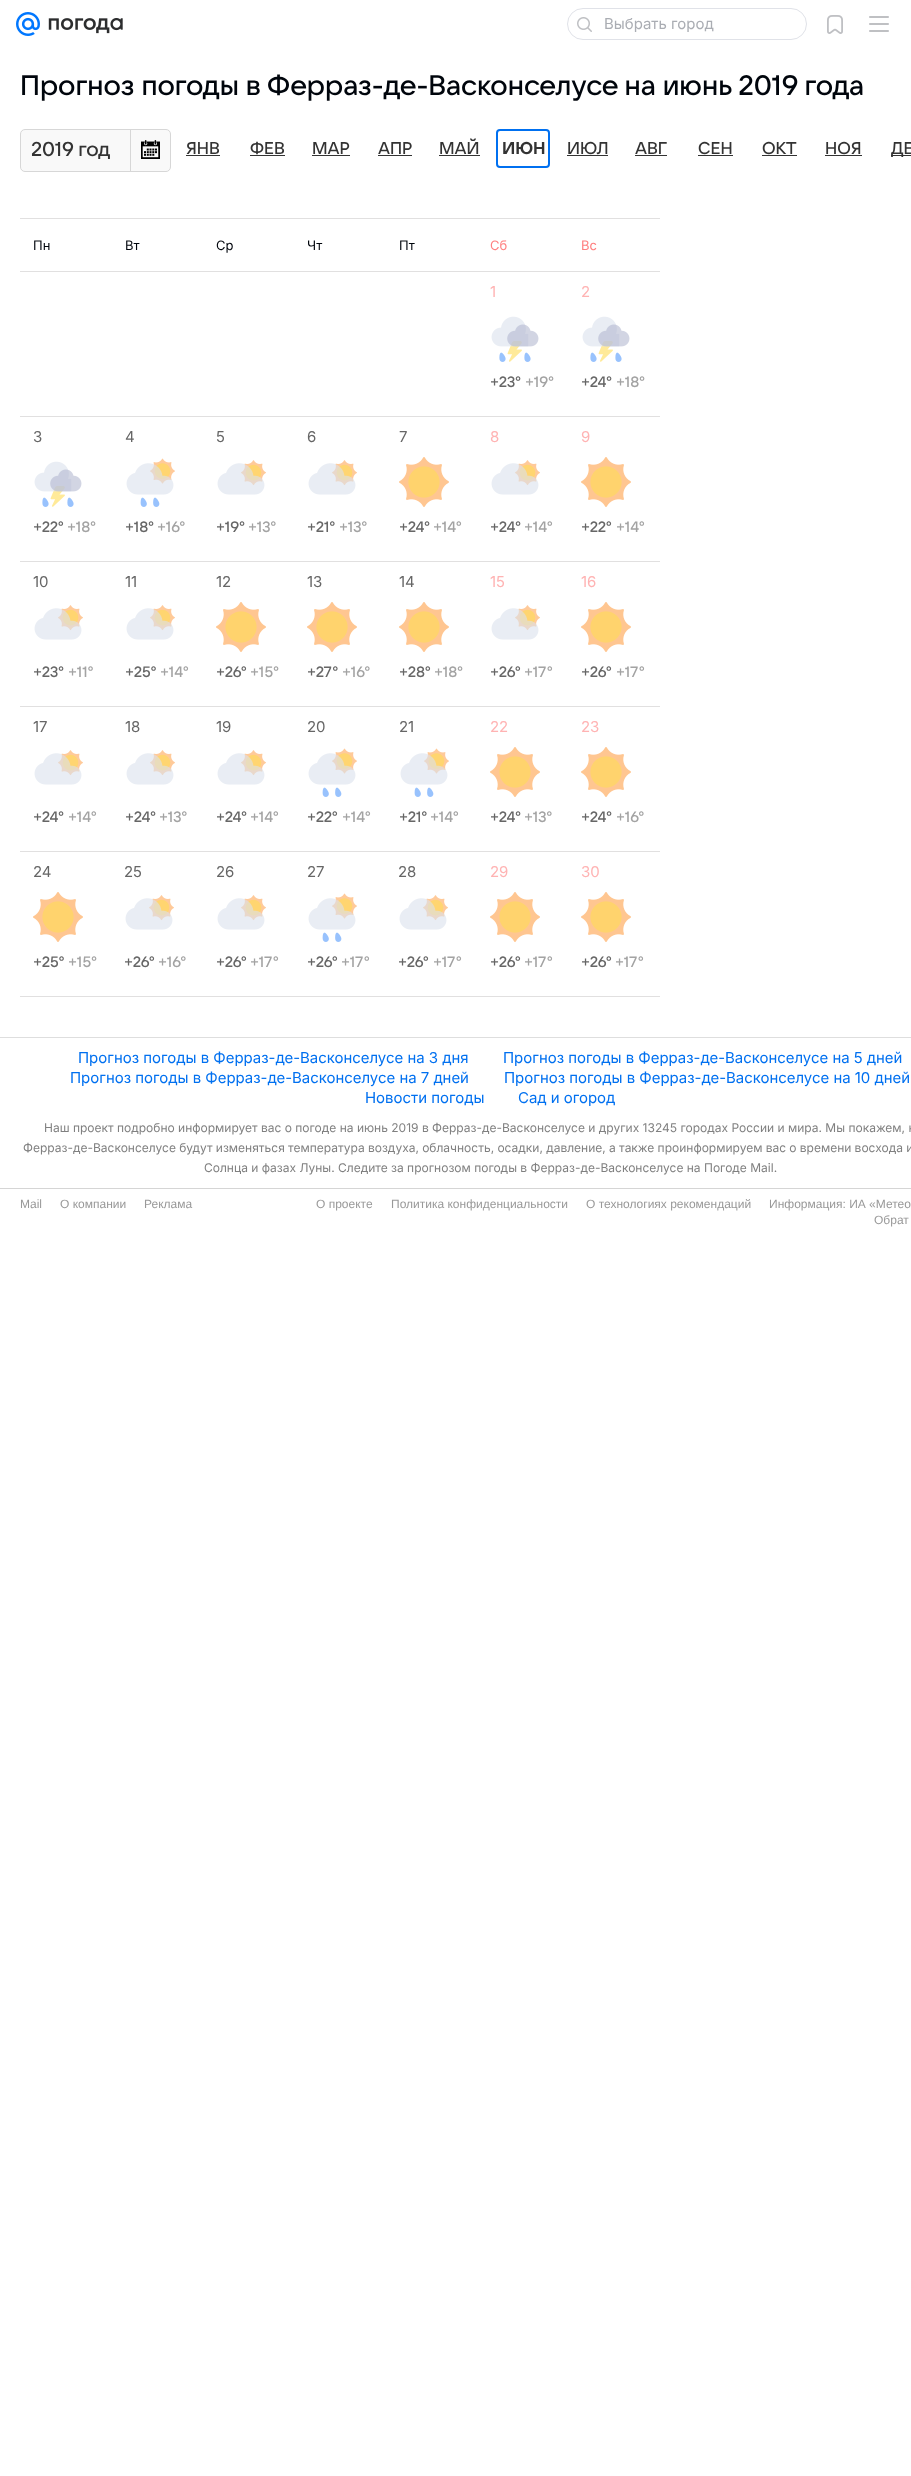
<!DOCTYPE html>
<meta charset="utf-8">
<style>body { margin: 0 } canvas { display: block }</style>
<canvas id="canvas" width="911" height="2476"></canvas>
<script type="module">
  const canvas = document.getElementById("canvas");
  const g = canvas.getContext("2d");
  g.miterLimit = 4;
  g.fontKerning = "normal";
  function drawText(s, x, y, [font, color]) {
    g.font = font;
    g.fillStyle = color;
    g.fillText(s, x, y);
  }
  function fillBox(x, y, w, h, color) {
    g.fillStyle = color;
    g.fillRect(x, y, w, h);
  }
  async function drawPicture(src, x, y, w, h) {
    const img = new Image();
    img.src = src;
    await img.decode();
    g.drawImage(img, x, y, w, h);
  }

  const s1 = ["15px Inter", "#AAADB3"];
  const s2 = ["500 28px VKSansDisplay", "#00050C"];
  const s3 = ["500 20px VKSansDisplay", "#333333"];
  const s4 = ["500 17px VKSansDisplay", "#333333"];
  const s5 = ["bold 17px VKSansDisplay", "#333333"];
  const s6 = ["13px 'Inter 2'", "#00050C"];
  const s7 = ["13px 'Inter 2'", "#FF8080"];
  const s8 = ["15px Inter", "#FFB3B3"];
  const s9 = ["500 15px VKSansDisplay", "#666666"];
  const s10 = ["500 15px VKSansDisplay", "#A3A3A3"];
  const s11 = ["15px Inter", "#666666"];
  const s12 = ["15px Inter", "#0070F0"];
  const s13 = ["12px 'Inter 2'", "#808080"];
  const s14 = ["12px Liberation Sans", "#999999"];

  fillBox(0, 0, 911, 2476, "#FFFFFF");
  await drawPicture("pic1.png", 16, 12, 24, 24);
  await drawPicture("pic2.png", 48, 18, 75, 16);
  g.beginPath();
  g.roundRect(567.5, 8.5, 239, 31, 15.5);
  g.strokeStyle = "#E0E2E8";
  g.stroke();
  await drawPicture("pic3.png", 577, 17, 15, 15);
  drawText("Выбрать город", 604, 29, s1);
  await drawPicture("pic4.png", 827, 15, 16, 19);
  await drawPicture("pic5.png", 869, 16, 20, 16);
  drawText("Прогноз погоды в Ферраз-де-Васконселусе на июнь 2019 года", 20, 95, s2);
  g.fillStyle = "#F9F9F9";
  g.beginPath();
  g.roundRect(20.5, 129.5, 150, 42, 4.5);
  g.fill();
  g.strokeStyle = "#D7D7D7";
  g.stroke();
  drawText("2019 год", 31, 156, s3);
  fillBox(130, 130, 1, 41, "#D7D7D7");
  await drawPicture("pic6.png", 141, 140, 19, 19);
  drawText("ЯНВ", 186, 154, s4);
  fillBox(186, 155, 34, 1, "#333333");
  drawText("ФЕВ", 250, 154, s4);
  fillBox(250, 155, 35, 1, "#333333");
  drawText("МАР", 312, 154, s4);
  fillBox(312, 155, 38, 1, "#333333");
  drawText("АПР", 378, 154, s4);
  fillBox(378, 155, 34, 1, "#333333");
  drawText("МАЙ", 439, 154, s4);
  fillBox(439, 155, 41, 1, "#333333");
  g.beginPath();
  g.roundRect(497, 130, 52, 37, 3);
  g.strokeStyle = "#0070F0";
  g.lineWidth = 2;
  g.stroke();
  drawText("ИЮН", 502, 154, s5);
  drawText("ИЮЛ", 567, 154, s4);
  fillBox(567, 155, 41, 1, "#333333");
  drawText("АВГ", 635, 154, s4);
  fillBox(635, 155, 32, 1, "#333333");
  drawText("СЕН", 698, 154, s4);
  fillBox(698, 155, 35, 1, "#333333");
  drawText("ОКТ", 762, 154, s4);
  fillBox(762, 155, 35, 1, "#333333");
  drawText("НОЯ", 825, 154, s4);
  fillBox(825, 155, 37, 1, "#333333");
  fillBox(891, 155, 20, 1, "#333333");
  drawText("ДЕ", 891, 154, s4);
  fillBox(20, 218, 640, 1, "#E1E0E0");
  fillBox(20, 271, 640, 1, "#E1E0E0");
  drawText("Пн", 33, 250, s6);
  drawText("Вт", 125, 250, s6);
  drawText("Ср", 216, 250, s6);
  drawText("Чт", 307, 250, s6);
  drawText("Пт", 399, 250, s6);
  drawText("Сб", 490, 250, s7);
  drawText("Вс", 581, 250, s7);
  fillBox(20, 416, 640, 1, "#E1E0E0");
  drawText("1", 490, 297, s8);
  await drawPicture("pic7.png", 491, 316, 48, 46);
  drawText("+23°", 490, 387, s9);
  drawText("+19°", 525, 387, s10);
  drawText("2", 581, 297, s8);
  await drawPicture("pic7.png", 582, 316, 48, 46);
  drawText("+24°", 581, 387, s9);
  drawText("+18°", 616, 387, s10);
  fillBox(20, 561, 640, 1, "#E1E0E0");
  drawText("3", 33, 442, s11);
  await drawPicture("pic7.png", 34, 461, 48, 46);
  drawText("+22°", 33, 532, s9);
  drawText("+18°", 67, 532, s10);
  drawText("4", 125, 442, s11);
  await drawPicture("pic8.png", 126, 458, 49, 49);
  drawText("+18°", 125, 532, s9);
  drawText("+16°", 157, 532, s10);
  drawText("5", 216, 442, s11);
  await drawPicture("pic9.png", 217, 460, 49, 35);
  drawText("+19°", 216, 532, s9);
  drawText("+13°", 248, 532, s10);
  drawText("6", 307, 442, s11);
  await drawPicture("pic9.png", 308, 460, 49, 35);
  drawText("+21°", 307, 532, s9);
  drawText("+13°", 339, 532, s10);
  drawText("7", 399, 442, s11);
  await drawPicture("pic10.png", 399, 457, 50, 50);
  drawText("+24°", 399, 532, s9);
  drawText("+14°", 433, 532, s10);
  drawText("8", 490, 442, s8);
  await drawPicture("pic9.png", 491, 460, 49, 35);
  drawText("+24°", 490, 532, s9);
  drawText("+14°", 524, 532, s10);
  drawText("9", 581, 442, s8);
  await drawPicture("pic10.png", 581, 457, 50, 50);
  drawText("+22°", 581, 532, s9);
  drawText("+14°", 616, 532, s10);
  fillBox(20, 706, 640, 1, "#E1E0E0");
  drawText("10", 33, 587, s11);
  await drawPicture("pic9.png", 34, 605, 49, 35);
  drawText("+23°", 33, 677, s9);
  drawText("+11°", 68, 677, s10);
  drawText("11", 125, 587, s11);
  await drawPicture("pic9.png", 126, 605, 49, 35);
  drawText("+25°", 125, 677, s9);
  drawText("+14°", 160, 677, s10);
  drawText("12", 216, 587, s11);
  await drawPicture("pic10.png", 216, 602, 50, 50);
  drawText("+26°", 216, 677, s9);
  drawText("+15°", 250, 677, s10);
  drawText("13", 307, 587, s11);
  await drawPicture("pic10.png", 307, 602, 50, 50);
  drawText("+27°", 307, 677, s9);
  drawText("+16°", 342, 677, s10);
  drawText("14", 399, 587, s11);
  await drawPicture("pic10.png", 399, 602, 50, 50);
  drawText("+28°", 399, 677, s9);
  drawText("+18°", 434, 677, s10);
  drawText("15", 490, 587, s8);
  await drawPicture("pic9.png", 491, 605, 49, 35);
  drawText("+26°", 490, 677, s9);
  drawText("+17°", 524, 677, s10);
  drawText("16", 581, 587, s8);
  await drawPicture("pic10.png", 581, 602, 50, 50);
  drawText("+26°", 581, 677, s9);
  drawText("+17°", 616, 677, s10);
  fillBox(20, 851, 640, 1, "#E1E0E0");
  drawText("17", 33, 732, s11);
  await drawPicture("pic9.png", 34, 750, 49, 35);
  drawText("+24°", 33, 822, s9);
  drawText("+14°", 68, 822, s10);
  drawText("18", 125, 732, s11);
  await drawPicture("pic9.png", 126, 750, 49, 35);
  drawText("+24°", 125, 822, s9);
  drawText("+13°", 159, 822, s10);
  drawText("19", 216, 732, s11);
  await drawPicture("pic9.png", 217, 750, 49, 35);
  drawText("+24°", 216, 822, s9);
  drawText("+14°", 250, 822, s10);
  drawText("20", 307, 732, s11);
  await drawPicture("pic8.png", 308, 748, 49, 49);
  drawText("+22°", 307, 822, s9);
  drawText("+14°", 342, 822, s10);
  drawText("21", 399, 732, s11);
  await drawPicture("pic8.png", 400, 748, 49, 49);
  drawText("+21°", 399, 822, s9);
  drawText("+14°", 430, 822, s10);
  drawText("22", 490, 732, s8);
  await drawPicture("pic10.png", 490, 747, 50, 50);
  drawText("+24°", 490, 822, s9);
  drawText("+13°", 524, 822, s10);
  drawText("23", 581, 732, s8);
  await drawPicture("pic10.png", 581, 747, 50, 50);
  drawText("+24°", 581, 822, s9);
  drawText("+16°", 616, 822, s10);
  fillBox(20, 996, 640, 1, "#E1E0E0");
  drawText("24", 33, 877, s11);
  await drawPicture("pic10.png", 33, 892, 50, 50);
  drawText("+25°", 33, 967, s9);
  drawText("+15°", 68, 967, s10);
  drawText("25", 124, 877, s11);
  await drawPicture("pic9.png", 125, 895, 49, 35);
  drawText("+26°", 124, 967, s9);
  drawText("+16°", 158, 967, s10);
  drawText("26", 216, 877, s11);
  await drawPicture("pic9.png", 217, 895, 49, 35);
  drawText("+26°", 216, 967, s9);
  drawText("+17°", 250, 967, s10);
  drawText("27", 307, 877, s11);
  await drawPicture("pic8.png", 308, 893, 49, 49);
  drawText("+26°", 307, 967, s9);
  drawText("+17°", 341, 967, s10);
  drawText("28", 398, 877, s11);
  await drawPicture("pic9.png", 399, 895, 49, 35);
  drawText("+26°", 398, 967, s9);
  drawText("+17°", 433, 967, s10);
  drawText("29", 490, 877, s8);
  await drawPicture("pic10.png", 490, 892, 50, 50);
  drawText("+26°", 490, 967, s9);
  drawText("+17°", 524, 967, s10);
  drawText("30", 581, 877, s8);
  await drawPicture("pic10.png", 581, 892, 50, 50);
  drawText("+26°", 581, 967, s9);
  drawText("+17°", 615, 967, s10);
  fillBox(0, 1037, 911, 1, "#DEDEDE");
  drawText("Прогноз погоды в Ферраз-де-Васконселусе на 3 дня", 78, 1063, s12);
  drawText("Прогноз погоды в Ферраз-де-Васконселусе на 5 дней", 503, 1063, s12);
  drawText("Прогноз погоды в Ферраз-де-Васконселусе на 7 дней", 70, 1083, s12);
  drawText("Прогноз погоды в Ферраз-де-Васконселусе на 10 дней", 504, 1083, s12);
  drawText("Новости погоды", 365, 1103, s12);
  drawText("Сад и огород", 518, 1103, s12);
  drawText("Наш проект подробно информирует вас о погоде на июнь 2019 в Ферраз-де-Васконселусе и других 13245 городах России и мира. Мы покажем, к", 44, 1132, s13);
  g.wordSpacing = "-0.1px";
  drawText("Ферраз-де-Васконселусе будут изменяться температура воздуха, облачность, осадки, давление, а также проинформируем вас о времени восхода и", 23, 1152, s13);
  g.wordSpacing = "0px";
  drawText("Солнца и фазах Луны. Следите за прогнозом погоды в Ферраз-де-Васконселусе на Погоде Mail.", 204, 1172, s13);
  fillBox(0, 1188, 911, 1, "#D5D5D5");
  drawText("Mail", 20, 1208, s14);
  drawText("О компании", 60, 1208, s14);
  drawText("Реклама", 144, 1208, s14);
  drawText("О проекте", 316, 1208, s14);
  drawText("Политика конфиденциальности", 391, 1208, s14);
  drawText("О технологиях рекомендаций", 586, 1208, s14);
  drawText("Информация: ИА «Метео", 769, 1208, s14);
  drawText("Обрат", 874, 1224, s14);
</script>
